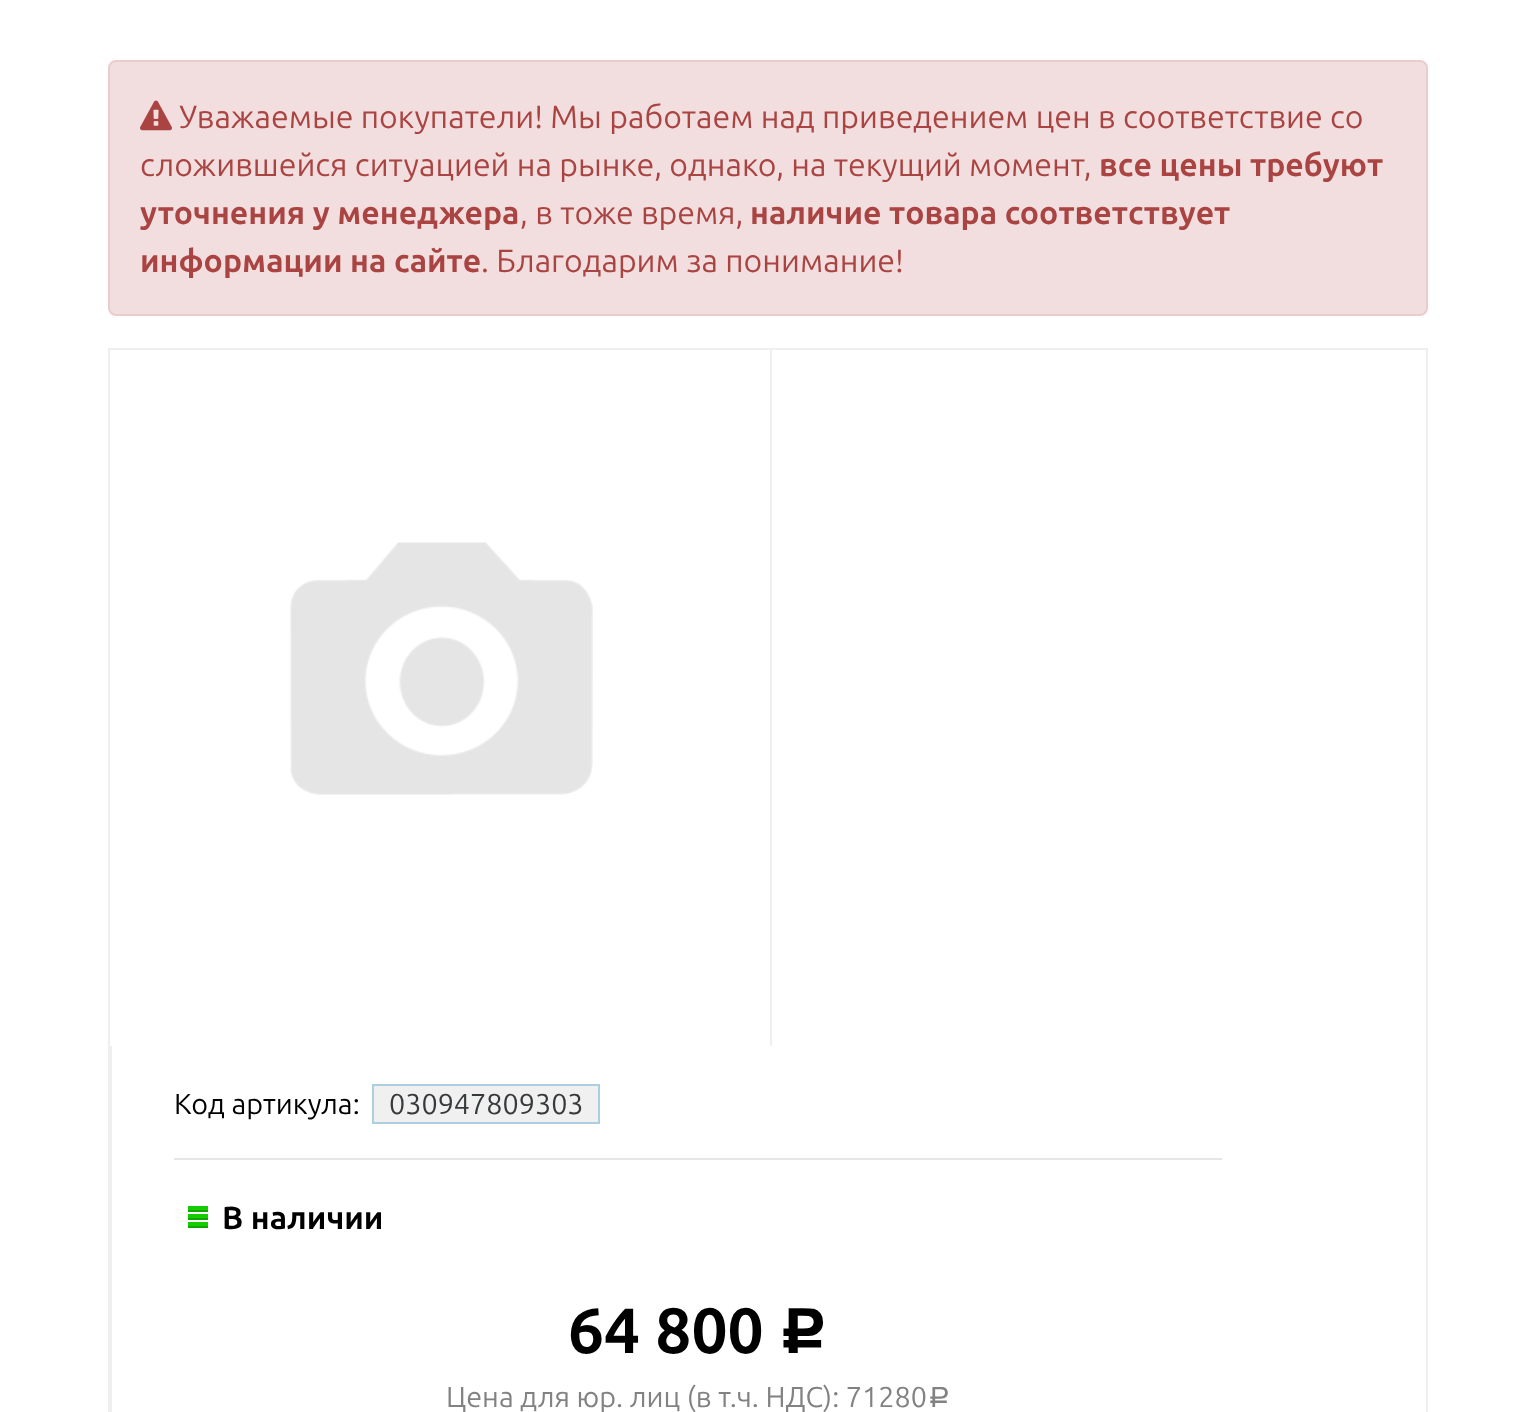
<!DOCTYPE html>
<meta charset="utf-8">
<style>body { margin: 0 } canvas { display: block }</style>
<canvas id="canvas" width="1535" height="1412"></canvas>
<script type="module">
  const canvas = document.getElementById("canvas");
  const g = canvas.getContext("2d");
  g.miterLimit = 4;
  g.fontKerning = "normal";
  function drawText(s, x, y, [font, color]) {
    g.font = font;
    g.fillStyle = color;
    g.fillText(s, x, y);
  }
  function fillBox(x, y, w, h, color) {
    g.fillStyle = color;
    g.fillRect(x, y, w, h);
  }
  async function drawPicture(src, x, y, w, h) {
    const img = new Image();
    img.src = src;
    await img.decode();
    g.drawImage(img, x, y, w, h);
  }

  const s1 = ["32px Ubuntu", "#A94442"];
  const s2 = ["bold 32px Ubuntu", "#A94442"];
  const s3 = ["28.75px Ubuntu", "#000000"];
  const s4 = ["28.75px Ubuntu", "#373A3C"];
  const s5 = ["bold 32px Ubuntu", "#000000"];
  const s6 = ["bold 64px Ubuntu", "#000000"];
  const s7 = ["bold 64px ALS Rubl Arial", "#000000"];
  const s8 = ["28.75px Ubuntu", "#828282"];
  const s9 = ["28.75px ALS Rubl Arial", "#828282"];

  fillBox(0, 0, 1535, 1412, "#FFFFFF");
  g.fillStyle = "#F2DEDE";
  g.beginPath();
  g.roundRect(109, 61, 1318, 254, 7);
  g.fill();
  g.strokeStyle = "#EBCCCC";
  g.lineWidth = 2;
  g.stroke();
  await drawPicture("pic1.png", 140, 100, 32, 31);
  drawText("Уважаемые покупатели! Мы работаем над приведением цен в соответствие со", 179, 128, s1);
  drawText("сложившейся ситуацией на рынке, однако, на текущий момент,", 140, 176, s1);
  drawText("все цены требуют", 1099, 176, s2);
  drawText("уточнения у менеджера", 140, 224, s2);
  drawText(", в тоже время,", 520, 224, s1);
  drawText("наличие товара соответствует", 750, 224, s2);
  drawText("информации на сайте", 140, 272, s2);
  drawText(". Благодарим за понимание!", 481, 272, s1);
  g.strokeStyle = "#EFEFEF";
  g.strokeRect(109, 349, 1318, 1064);
  fillBox(770, 350, 2, 696, "#EFEFEF");
  await drawPicture("pic2.png", 290, 542, 303, 253);
  fillBox(110, 1046, 2, 366, "#EFEFEF");
  drawText("Код артикула:", 174, 1114, s3);
  g.fillStyle = "#F0F0F0";
  g.beginPath();
  g.rect(373, 1085, 226, 38);
  g.fill();
  g.strokeStyle = "#ABCFDF";
  g.stroke();
  drawText("030947809303", 389, 1114, s4);
  fillBox(174, 1158, 1048, 2, "#E6E6E6");
  await drawPicture("pic3.png", 188, 1206, 20, 22);
  drawText("В наличии", 222, 1229, s5);
  drawText("64 800", 568, 1353, s6);
  drawText("Р", 779, 1353, s7);
  drawText("Цена для юр. лиц (в т.ч. НДС): 71280", 446, 1407, s8);
  drawText("Р", 928, 1407, s9);
</script>
